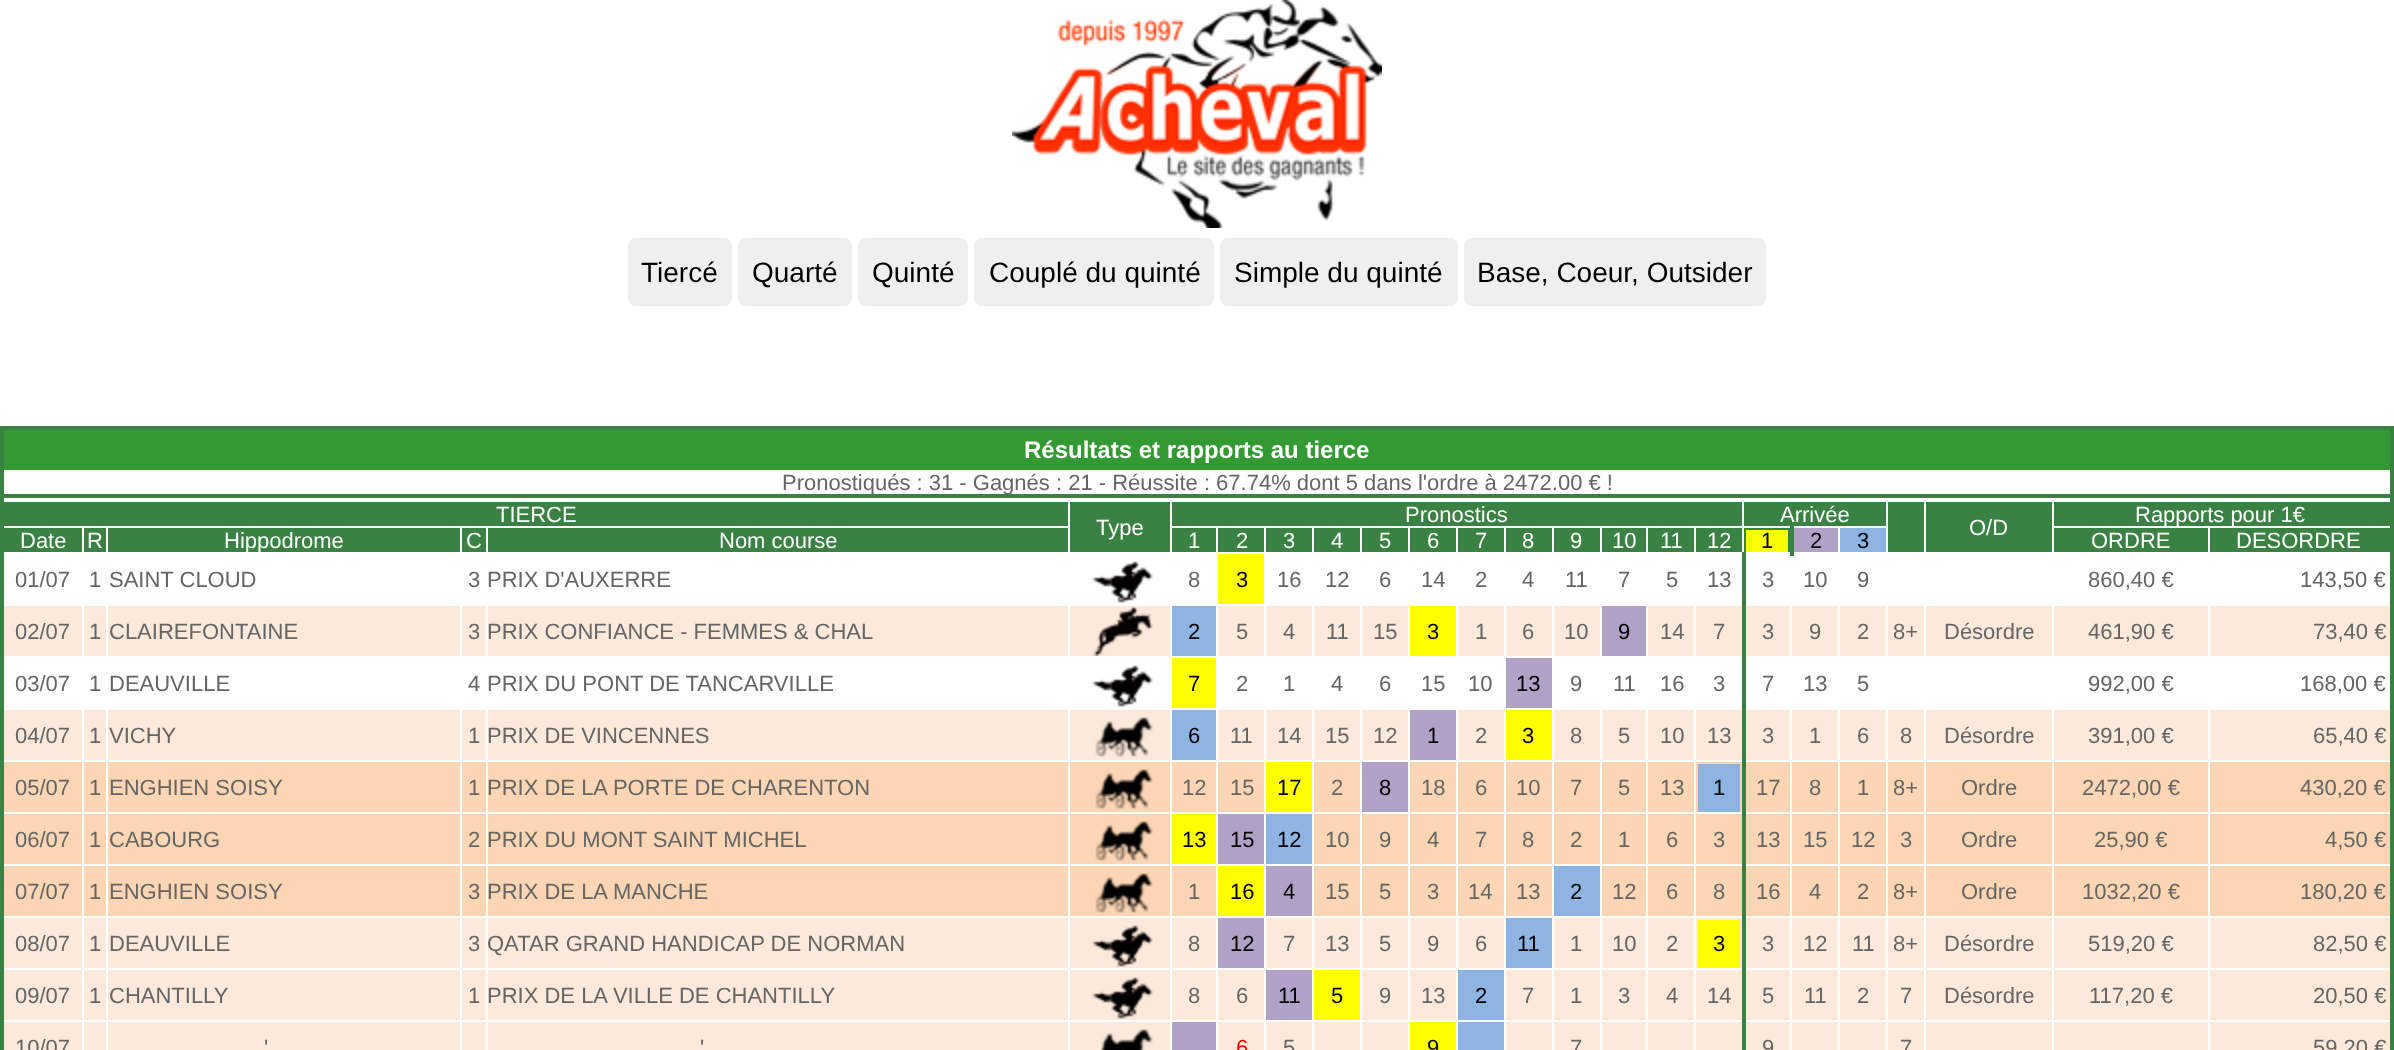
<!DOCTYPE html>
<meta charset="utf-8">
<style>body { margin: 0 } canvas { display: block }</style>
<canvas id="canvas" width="2394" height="1050"></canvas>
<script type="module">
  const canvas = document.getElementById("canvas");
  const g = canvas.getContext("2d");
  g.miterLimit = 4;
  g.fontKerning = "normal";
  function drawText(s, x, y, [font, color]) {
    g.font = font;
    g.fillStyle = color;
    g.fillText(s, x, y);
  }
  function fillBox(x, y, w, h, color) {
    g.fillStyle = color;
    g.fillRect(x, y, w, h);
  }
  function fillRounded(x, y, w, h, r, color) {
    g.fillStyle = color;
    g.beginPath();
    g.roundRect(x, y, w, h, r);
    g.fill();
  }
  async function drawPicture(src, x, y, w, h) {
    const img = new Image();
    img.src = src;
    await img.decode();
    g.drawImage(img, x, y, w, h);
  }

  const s1 = ["28px Liberation Sans", "#000000"];
  const s2 = ["bold 24px Liberation Sans", "#FFFFFF"];
  const s3 = ["22px Liberation Sans", "#656565"];
  const s4 = ["22px Liberation Sans", "#FFFFFF"];
  const s5 = ["22px Liberation Sans", "#000000"];
  const s6 = ["22px Liberation Sans", "#FF0000"];

  fillBox(0, 0, 2394, 1050, "#FFFFFF");
  await drawPicture("pic1.png", 1012, 0, 370, 228);
  fillRounded(628, 238, 104, 68, 8, "#EFEFEF");
  drawText("Tiercé", 641, 282, s1);
  fillRounded(738, 238, 114, 68, 8, "#EFEFEF");
  drawText("Quarté", 752, 282, s1);
  fillRounded(858, 238, 110, 68, 8, "#EFEFEF");
  drawText("Quinté", 872, 282, s1);
  fillRounded(974, 238, 240, 68, 8, "#EFEFEF");
  drawText("Couplé du quinté", 989, 282, s1);
  fillRounded(1220, 238, 238, 68, 8, "#EFEFEF");
  drawText("Simple du quinté", 1234, 282, s1);
  fillRounded(1464, 238, 302, 68, 8, "#EFEFEF");
  drawText("Base, Coeur, Outsider", 1477, 282, s1);
  fillBox(4, 502, 2386, 50, "#3A8243");
  fillBox(2052, 526, 2, 28, "#FFFFFF");
  fillBox(2208, 526, 2, 28, "#FFFFFF");
  fillBox(2052, 526, 342, 2, "#FFFFFF");
  fillBox(2390, 498, 4, 552, "#3A8243");
  fillBox(1068, 500, 2, 54, "#FFFFFF");
  fillBox(82, 526, 2, 28, "#FFFFFF");
  fillBox(106, 526, 2, 28, "#FFFFFF");
  fillBox(460, 526, 2, 28, "#FFFFFF");
  fillBox(486, 526, 2, 28, "#FFFFFF");
  fillBox(2, 526, 1068, 2, "#FFFFFF");
  fillBox(0, 498, 4, 552, "#3A8243");
  g.strokeStyle = "#3A8243";
  g.lineWidth = 4;
  g.strokeRect(2, 428, 2390, 68);
  fillBox(4, 430, 2386, 40, "#339933");
  drawText("Résultats et rapports au tierce", 1024, 458, s2);
  g.save();
  g.beginPath();
  g.rect(4, 430, 2386, 64);
  g.clip();
  drawText("Pronostiqués : 31 - Gagnés : 21 - Réussite : 67.74% dont 5 dans l'ordre à 2472.00 € !", 782, 490, s3);
  g.restore();
  drawText("TIERCE", 496, 522, s4);
  drawText("Pronostics", 1405, 522, s4);
  fillBox(1838, 526, 50, 2, "#FFFFFF");
  fillBox(1838, 526, 2, 28, "#FFFFFF");
  fillBox(1742, 526, 98, 2, "#FFFFFF");
  fillBox(1742, 526, 2, 28, "#FFFFFF");
  fillBox(1694, 526, 50, 2, "#FFFFFF");
  fillBox(1742, 500, 2, 28, "#FFFFFF");
  drawText("Arrivée", 1780, 522, s4);
  fillBox(1886, 500, 2, 54, "#FFFFFF");
  fillBox(2052, 500, 2, 28, "#FFFFFF");
  drawText("Rapports pour 1€", 2135, 522, s4);
  drawText("Type", 1096, 535, s4);
  fillBox(1924, 500, 2, 54, "#FFFFFF");
  drawText("O/D", 1969, 535, s4);
  drawText("Date", 20, 548, s4);
  drawText("R", 87, 548, s4);
  drawText("Hippodrome", 224, 548, s4);
  drawText("C", 466, 548, s4);
  drawText("Nom course", 719, 548, s4);
  fillBox(1694, 526, 2, 28, "#FFFFFF");
  fillBox(1646, 526, 50, 2, "#FFFFFF");
  fillBox(1646, 526, 2, 28, "#FFFFFF");
  fillBox(1600, 526, 48, 2, "#FFFFFF");
  fillBox(1600, 526, 2, 28, "#FFFFFF");
  fillBox(1552, 526, 50, 2, "#FFFFFF");
  fillBox(1552, 526, 2, 28, "#FFFFFF");
  fillBox(1504, 526, 50, 2, "#FFFFFF");
  fillBox(1504, 526, 2, 28, "#FFFFFF");
  fillBox(1456, 526, 50, 2, "#FFFFFF");
  fillBox(1456, 526, 2, 28, "#FFFFFF");
  fillBox(1408, 526, 50, 2, "#FFFFFF");
  fillBox(1408, 526, 2, 28, "#FFFFFF");
  fillBox(1360, 526, 50, 2, "#FFFFFF");
  fillBox(1360, 526, 2, 28, "#FFFFFF");
  fillBox(1312, 526, 50, 2, "#FFFFFF");
  fillBox(1312, 526, 2, 28, "#FFFFFF");
  fillBox(1264, 526, 50, 2, "#FFFFFF");
  fillBox(1264, 526, 2, 28, "#FFFFFF");
  fillBox(1216, 526, 50, 2, "#FFFFFF");
  fillBox(1216, 526, 2, 28, "#FFFFFF");
  fillBox(1170, 526, 48, 2, "#FFFFFF");
  fillBox(1170, 500, 2, 54, "#FFFFFF");
  drawText("1", 1188, 548, s4);
  drawText("2", 1236, 548, s4);
  drawText("3", 1283, 548, s4);
  drawText("4", 1331, 548, s4);
  drawText("5", 1379, 548, s4);
  drawText("6", 1427, 548, s4);
  drawText("7", 1475, 548, s4);
  drawText("8", 1522, 548, s4);
  drawText("9", 1570, 548, s4);
  drawText("10", 1612, 548, s4);
  drawText("11", 1660, 548, s4);
  drawText("12", 1707, 548, s4);
  fillBox(1746, 530, 42, 22, "#FFFF00");
  fillBox(1790, 526, 4, 30, "#3A8243");
  drawText("1", 1761, 548, s5);
  fillBox(1794, 528, 44, 24, "#B2A1C7");
  drawText("2", 1810, 548, s5);
  fillBox(1840, 528, 46, 24, "#8DB4E3");
  drawText("3", 1857, 548, s5);
  drawText("ORDRE", 2091, 548, s4);
  drawText("DESORDRE", 2236, 548, s4);
  drawText("01/07", 15, 587, s3);
  drawText("1", 89, 587, s3);
  drawText("SAINT CLOUD", 109, 587, s3);
  drawText("3", 468, 587, s3);
  drawText("PRIX D'AUXERRE", 487, 587, s3);
  await drawPicture("pic2.png", 1092, 561, 61, 42);
  drawText("8", 1188, 587, s3);
  fillBox(1218, 554, 46, 50, "#FFFF00");
  drawText("3", 1236, 587, s5);
  drawText("16", 1277, 587, s3);
  drawText("12", 1325, 587, s3);
  drawText("6", 1379, 587, s3);
  drawText("14", 1421, 587, s3);
  drawText("2", 1475, 587, s3);
  drawText("4", 1522, 587, s3);
  drawText("11", 1565, 587, s3);
  drawText("7", 1618, 587, s3);
  drawText("5", 1666, 587, s3);
  drawText("13", 1707, 587, s3);
  drawText("3", 1762, 587, s3);
  drawText("10", 1803, 587, s3);
  drawText("9", 1857, 587, s3);
  drawText("860,40 €", 2088, 587, s3);
  drawText("143,50 €", 2300, 587, s3);
  fillBox(4, 606, 2386, 50, "#FDE9D9");
  drawText("02/07", 15, 639, s3);
  fillBox(82, 604, 2, 54, "#FFFFFF");
  drawText("1", 89, 639, s3);
  fillBox(106, 604, 2, 54, "#FFFFFF");
  drawText("CLAIREFONTAINE", 109, 639, s3);
  fillBox(460, 604, 2, 54, "#FFFFFF");
  drawText("3", 468, 639, s3);
  fillBox(486, 604, 2, 54, "#FFFFFF");
  drawText("PRIX CONFIANCE - FEMMES & CHAL", 487, 639, s3);
  fillBox(1068, 604, 2, 54, "#FFFFFF");
  await drawPicture("pic3.png", 1093, 606, 60, 50);
  fillBox(1172, 606, 44, 50, "#8DB4E3");
  fillBox(1170, 604, 2, 54, "#FFFFFF");
  drawText("2", 1188, 639, s5);
  fillBox(1216, 604, 2, 54, "#FFFFFF");
  drawText("5", 1236, 639, s3);
  fillBox(1264, 604, 2, 54, "#FFFFFF");
  drawText("4", 1283, 639, s3);
  fillBox(1312, 604, 2, 54, "#FFFFFF");
  drawText("11", 1326, 639, s3);
  fillBox(1360, 604, 2, 54, "#FFFFFF");
  drawText("15", 1373, 639, s3);
  fillBox(1410, 606, 46, 50, "#FFFF00");
  fillBox(1408, 604, 2, 54, "#FFFFFF");
  drawText("3", 1427, 639, s5);
  fillBox(1456, 604, 2, 54, "#FFFFFF");
  drawText("1", 1475, 639, s3);
  fillBox(1504, 604, 2, 54, "#FFFFFF");
  drawText("6", 1522, 639, s3);
  fillBox(1552, 604, 2, 54, "#FFFFFF");
  drawText("10", 1564, 639, s3);
  fillBox(1602, 606, 44, 50, "#B2A1C7");
  fillBox(1600, 604, 2, 54, "#FFFFFF");
  drawText("9", 1618, 639, s5);
  fillBox(1646, 604, 2, 54, "#FFFFFF");
  drawText("14", 1660, 639, s3);
  fillBox(1694, 604, 2, 54, "#FFFFFF");
  drawText("7", 1713, 639, s3);
  drawText("3", 1762, 639, s3);
  fillBox(1790, 604, 2, 54, "#FFFFFF");
  drawText("9", 1809, 639, s3);
  fillBox(1838, 604, 2, 54, "#FFFFFF");
  drawText("2", 1857, 639, s3);
  fillBox(1886, 604, 2, 54, "#FFFFFF");
  drawText("8+", 1893, 639, s3);
  fillBox(1924, 604, 2, 54, "#FFFFFF");
  drawText("Désordre", 1944, 639, s3);
  fillBox(2052, 604, 2, 54, "#FFFFFF");
  drawText("461,90 €", 2088, 639, s3);
  fillBox(2208, 604, 2, 54, "#FFFFFF");
  drawText("73,40 €", 2313, 639, s3);
  drawText("03/07", 15, 691, s3);
  drawText("1", 89, 691, s3);
  drawText("DEAUVILLE", 109, 691, s3);
  drawText("4", 468, 691, s3);
  drawText("PRIX DU PONT DE TANCARVILLE", 487, 691, s3);
  await drawPicture("pic2.png", 1092, 665, 61, 42);
  fillBox(1172, 658, 44, 50, "#FFFF00");
  drawText("7", 1188, 691, s5);
  drawText("2", 1236, 691, s3);
  drawText("1", 1283, 691, s3);
  drawText("4", 1331, 691, s3);
  drawText("6", 1379, 691, s3);
  drawText("15", 1421, 691, s3);
  drawText("10", 1468, 691, s3);
  fillBox(1506, 658, 46, 50, "#B2A1C7");
  drawText("13", 1516, 691, s5);
  drawText("9", 1570, 691, s3);
  drawText("11", 1613, 691, s3);
  drawText("16", 1660, 691, s3);
  drawText("3", 1713, 691, s3);
  drawText("7", 1762, 691, s3);
  drawText("13", 1803, 691, s3);
  drawText("5", 1857, 691, s3);
  drawText("992,00 €", 2088, 691, s3);
  drawText("168,00 €", 2300, 691, s3);
  fillBox(4, 710, 2386, 50, "#FDE9D9");
  drawText("04/07", 15, 743, s3);
  drawText("1", 89, 743, s3);
  drawText("VICHY", 109, 743, s3);
  drawText("1", 468, 743, s3);
  drawText("PRIX DE VINCENNES", 487, 743, s3);
  await drawPicture("pic4.png", 1095, 717, 58, 40);
  fillBox(1172, 710, 44, 50, "#8DB4E3");
  drawText("6", 1188, 743, s5);
  drawText("11", 1230, 743, s3);
  drawText("14", 1277, 743, s3);
  drawText("15", 1325, 743, s3);
  drawText("12", 1373, 743, s3);
  fillBox(1410, 710, 46, 50, "#B2A1C7");
  drawText("1", 1427, 743, s5);
  drawText("2", 1475, 743, s3);
  fillBox(1506, 710, 46, 50, "#FFFF00");
  drawText("3", 1522, 743, s5);
  drawText("8", 1570, 743, s3);
  drawText("5", 1618, 743, s3);
  drawText("10", 1660, 743, s3);
  drawText("13", 1707, 743, s3);
  drawText("3", 1762, 743, s3);
  drawText("1", 1809, 743, s3);
  drawText("6", 1857, 743, s3);
  drawText("8", 1900, 743, s3);
  drawText("Désordre", 1944, 743, s3);
  drawText("391,00 €", 2088, 743, s3);
  drawText("65,40 €", 2313, 743, s3);
  fillBox(4, 762, 2386, 50, "#FCD5B4");
  drawText("05/07", 15, 795, s3);
  drawText("1", 89, 795, s3);
  drawText("ENGHIEN SOISY", 109, 795, s3);
  drawText("1", 468, 795, s3);
  drawText("PRIX DE LA PORTE DE CHARENTON", 487, 795, s3);
  await drawPicture("pic5.png", 1095, 769, 58, 40);
  drawText("12", 1182, 795, s3);
  drawText("15", 1230, 795, s3);
  fillBox(1266, 762, 46, 50, "#FFFF00");
  drawText("17", 1277, 795, s5);
  drawText("2", 1331, 795, s3);
  fillBox(1362, 762, 46, 50, "#B2A1C7");
  drawText("8", 1379, 795, s5);
  drawText("18", 1421, 795, s3);
  drawText("6", 1475, 795, s3);
  drawText("10", 1516, 795, s3);
  drawText("7", 1570, 795, s3);
  drawText("5", 1618, 795, s3);
  drawText("13", 1660, 795, s3);
  fillBox(1698, 764, 42, 48, "#8DB4E3");
  drawText("1", 1713, 795, s5);
  drawText("17", 1756, 795, s3);
  drawText("8", 1809, 795, s3);
  drawText("1", 1857, 795, s3);
  drawText("8+", 1893, 795, s3);
  drawText("Ordre", 1961, 795, s3);
  drawText("2472,00 €", 2082, 795, s3);
  drawText("430,20 €", 2300, 795, s3);
  fillBox(4, 814, 2386, 50, "#FCD5B4");
  drawText("06/07", 15, 847, s3);
  drawText("1", 89, 847, s3);
  drawText("CABOURG", 109, 847, s3);
  drawText("2", 468, 847, s3);
  drawText("PRIX DU MONT SAINT MICHEL", 487, 847, s3);
  await drawPicture("pic5.png", 1095, 821, 58, 40);
  fillBox(1172, 814, 44, 50, "#FFFF00");
  drawText("13", 1182, 847, s5);
  fillBox(1218, 814, 46, 50, "#B2A1C7");
  drawText("15", 1230, 847, s5);
  fillBox(1266, 814, 46, 50, "#8DB4E3");
  drawText("12", 1277, 847, s5);
  drawText("10", 1325, 847, s3);
  drawText("9", 1379, 847, s3);
  drawText("4", 1427, 847, s3);
  drawText("7", 1475, 847, s3);
  drawText("8", 1522, 847, s3);
  drawText("2", 1570, 847, s3);
  drawText("1", 1618, 847, s3);
  drawText("6", 1666, 847, s3);
  drawText("3", 1713, 847, s3);
  drawText("13", 1756, 847, s3);
  drawText("15", 1803, 847, s3);
  drawText("12", 1851, 847, s3);
  drawText("3", 1900, 847, s3);
  drawText("Ordre", 1961, 847, s3);
  drawText("25,90 €", 2094, 847, s3);
  drawText("4,50 €", 2325, 847, s3);
  fillBox(4, 866, 2386, 50, "#FCD5B4");
  drawText("07/07", 15, 899, s3);
  drawText("1", 89, 899, s3);
  drawText("ENGHIEN SOISY", 109, 899, s3);
  drawText("3", 468, 899, s3);
  drawText("PRIX DE LA MANCHE", 487, 899, s3);
  await drawPicture("pic5.png", 1095, 873, 58, 40);
  drawText("1", 1188, 899, s3);
  fillBox(1218, 866, 46, 50, "#FFFF00");
  drawText("16", 1230, 899, s5);
  fillBox(1266, 866, 46, 50, "#B2A1C7");
  drawText("4", 1283, 899, s5);
  drawText("15", 1325, 899, s3);
  drawText("5", 1379, 899, s3);
  drawText("3", 1427, 899, s3);
  drawText("14", 1468, 899, s3);
  drawText("13", 1516, 899, s3);
  fillBox(1554, 866, 46, 50, "#8DB4E3");
  drawText("2", 1570, 899, s5);
  drawText("12", 1612, 899, s3);
  drawText("6", 1666, 899, s3);
  drawText("8", 1713, 899, s3);
  drawText("16", 1756, 899, s3);
  drawText("4", 1809, 899, s3);
  drawText("2", 1857, 899, s3);
  drawText("8+", 1893, 899, s3);
  drawText("Ordre", 1961, 899, s3);
  drawText("1032,20 €", 2082, 899, s3);
  drawText("180,20 €", 2300, 899, s3);
  fillBox(4, 918, 2386, 50, "#FDE9D9");
  drawText("08/07", 15, 951, s3);
  drawText("1", 89, 951, s3);
  drawText("DEAUVILLE", 109, 951, s3);
  drawText("3", 468, 951, s3);
  drawText("QATAR GRAND HANDICAP DE NORMAN", 487, 951, s3);
  await drawPicture("pic6.png", 1092, 925, 61, 42);
  drawText("8", 1188, 951, s3);
  fillBox(1218, 918, 46, 50, "#B2A1C7");
  drawText("12", 1230, 951, s5);
  drawText("7", 1283, 951, s3);
  drawText("13", 1325, 951, s3);
  drawText("5", 1379, 951, s3);
  drawText("9", 1427, 951, s3);
  drawText("6", 1475, 951, s3);
  fillBox(1506, 918, 46, 50, "#8DB4E3");
  drawText("11", 1517, 951, s5);
  drawText("1", 1570, 951, s3);
  drawText("10", 1612, 951, s3);
  drawText("2", 1666, 951, s3);
  fillBox(1698, 920, 42, 48, "#FFFF00");
  drawText("3", 1713, 951, s5);
  drawText("3", 1762, 951, s3);
  drawText("12", 1803, 951, s3);
  drawText("11", 1852, 951, s3);
  drawText("8+", 1893, 951, s3);
  drawText("Désordre", 1944, 951, s3);
  drawText("519,20 €", 2088, 951, s3);
  drawText("82,50 €", 2313, 951, s3);
  fillBox(4, 970, 2386, 50, "#FDE9D9");
  drawText("09/07", 15, 1003, s3);
  drawText("1", 89, 1003, s3);
  drawText("CHANTILLY", 109, 1003, s3);
  drawText("1", 468, 1003, s3);
  drawText("PRIX DE LA VILLE DE CHANTILLY", 487, 1003, s3);
  await drawPicture("pic6.png", 1092, 977, 61, 42);
  drawText("8", 1188, 1003, s3);
  drawText("6", 1236, 1003, s3);
  fillBox(1266, 970, 46, 50, "#B2A1C7");
  drawText("11", 1278, 1003, s5);
  fillBox(1314, 970, 46, 50, "#FFFF00");
  drawText("5", 1331, 1003, s5);
  drawText("9", 1379, 1003, s3);
  drawText("13", 1421, 1003, s3);
  fillBox(1458, 970, 46, 50, "#8DB4E3");
  drawText("2", 1475, 1003, s5);
  drawText("7", 1522, 1003, s3);
  drawText("1", 1570, 1003, s3);
  drawText("3", 1618, 1003, s3);
  drawText("4", 1666, 1003, s3);
  drawText("14", 1707, 1003, s3);
  drawText("5", 1762, 1003, s3);
  drawText("11", 1804, 1003, s3);
  drawText("2", 1857, 1003, s3);
  drawText("7", 1900, 1003, s3);
  drawText("Désordre", 1944, 1003, s3);
  drawText("117,20 €", 2089, 1003, s3);
  drawText("20,50 €", 2313, 1003, s3);
  fillBox(4, 1022, 2386, 28, "#FDE9D9");
  drawText("10/07", 15, 1055, s3);
  fillBox(82, 708, 2, 342, "#FFFFFF");
  fillBox(106, 708, 2, 342, "#FFFFFF");
  drawText("'", 264, 1055, s3);
  fillBox(460, 708, 2, 342, "#FFFFFF");
  fillBox(486, 708, 2, 342, "#FFFFFF");
  drawText("'", 700, 1055, s3);
  fillBox(1068, 708, 2, 342, "#FFFFFF");
  await drawPicture("pic7.png", 1100, 1029, 53, 21);
  fillBox(1172, 1022, 44, 28, "#B2A1C7");
  fillBox(1170, 708, 2, 342, "#FFFFFF");
  fillBox(1216, 708, 2, 342, "#FFFFFF");
  drawText("6", 1236, 1055, s6);
  fillBox(1264, 708, 2, 342, "#FFFFFF");
  drawText("5", 1283, 1055, s3);
  fillBox(1312, 708, 2, 342, "#FFFFFF");
  fillBox(1360, 708, 2, 342, "#FFFFFF");
  fillBox(1410, 1022, 46, 28, "#FFFF00");
  fillBox(1408, 708, 2, 342, "#FFFFFF");
  drawText("9", 1427, 1055, s5);
  fillBox(1458, 1022, 46, 28, "#8DB4E3");
  fillBox(1456, 708, 2, 342, "#FFFFFF");
  fillBox(1504, 708, 2, 342, "#FFFFFF");
  fillBox(1552, 708, 2, 342, "#FFFFFF");
  drawText("7", 1570, 1055, s3);
  fillBox(1600, 708, 2, 342, "#FFFFFF");
  fillBox(1646, 708, 2, 342, "#FFFFFF");
  fillBox(1694, 708, 2, 342, "#FFFFFF");
  fillBox(1742, 552, 4, 498, "#3A8243");
  drawText("9", 1762, 1055, s3);
  fillBox(1790, 708, 2, 342, "#FFFFFF");
  fillBox(1838, 708, 2, 342, "#FFFFFF");
  fillBox(1886, 708, 2, 342, "#FFFFFF");
  drawText("7", 1900, 1055, s3);
  fillBox(1924, 708, 2, 342, "#FFFFFF");
  fillBox(2052, 708, 2, 342, "#FFFFFF");
  fillBox(2208, 708, 2, 342, "#FFFFFF");
  drawText("59,20 €", 2313, 1055, s3);
</script>
